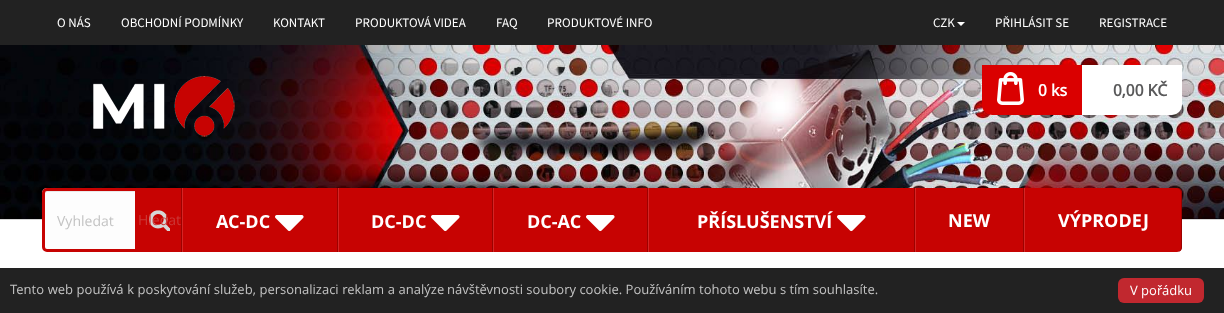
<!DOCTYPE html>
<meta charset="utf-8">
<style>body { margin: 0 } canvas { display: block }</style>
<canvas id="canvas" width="1224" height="313"></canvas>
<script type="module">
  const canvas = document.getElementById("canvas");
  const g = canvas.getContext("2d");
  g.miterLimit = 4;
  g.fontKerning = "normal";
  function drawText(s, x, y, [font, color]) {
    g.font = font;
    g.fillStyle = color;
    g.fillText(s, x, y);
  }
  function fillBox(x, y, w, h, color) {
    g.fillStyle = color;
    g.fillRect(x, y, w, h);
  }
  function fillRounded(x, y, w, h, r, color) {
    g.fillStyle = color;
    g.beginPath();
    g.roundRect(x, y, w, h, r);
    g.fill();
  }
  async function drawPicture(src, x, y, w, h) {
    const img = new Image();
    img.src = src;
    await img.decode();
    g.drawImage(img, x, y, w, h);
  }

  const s1 = ["13px Source Sans Pro", "#FFFFFF"];
  const s2 = ["bold 16px Noto Sans", "#FFFFFF"];
  const s3 = ["bold 16px Noto Sans", "#59595A"];
  const s4 = ["14px Open Sans", "#C3C3C3"];
  const s5 = ["14px Open Sans", "#CB3837"];
  const s6 = ["bold 18px Open Sans", "#FFFFFF"];
  const s7 = ["13px Open Sans", "#C3C3C3"];
  const s8 = ["13px Open Sans", "#FFFFFF"];

  fillBox(0, 0, 1224, 313, "#FFFFFF");
  fillBox(0, 0, 1224, 45, "#222222");
  drawText("O NÁS", 57, 27, s1);
  drawText("OBCHODNÍ PODMÍNKY", 121, 27, s1);
  drawText("KONTAKT", 273, 27, s1);
  drawText("PRODUKTOVÁ VIDEA", 355, 27, s1);
  drawText("FAQ", 496, 27, s1);
  drawText("PRODUKTOVÉ INFO", 547, 27, s1);
  drawText("CZK", 933, 27, s1);
  g.beginPath();
  g.moveTo(957, 22);
  g.lineTo(965, 22);
  g.lineTo(961, 26);
  g.closePath();
  g.fill();
  drawText("PŘIHLÁSIT SE", 995, 27, s1);
  drawText("REGISTRACE", 1099, 27, s1);
  await drawPicture("pic1.png", 0, 45, 1224, 174);
  fillBox(0, 219, 1224, 1, "#D5D5D5");
  await drawPicture("pic2.png", 93, 76, 142, 61);
  g.fillStyle = "#DA0000";
  g.beginPath();
  g.roundRect(982, 65, 100, 50, [0, 0, 0, 10]);
  g.fill();
  await drawPicture("pic3.png", 997, 72, 27, 33);
  drawText("0 ks", 1038, 96, s2);
  g.beginPath();
  g.roundRect(1082, 65, 100, 50, [0, 0, 10, 0]);
  g.fill();
  drawText("0,00 KČ", 1113, 96, s3);
  g.fillStyle = "#FDFDFD";
  g.beginPath();
  g.roundRect(42, 188, 96, 64, [5, 0, 0, 5]);
  g.fill();
  g.fillStyle = "#EAEAEA";
  g.beginPath();
  g.moveTo(47, 192);
  g.lineTo(135, 192);
  g.lineTo(135, 191);
  g.lineTo(47, 191);
  g.bezierCurveTo(46, 191, 45, 192, 45, 193);
  g.lineTo(45, 194);
  g.bezierCurveTo(45, 193, 46, 192, 47, 192);
  g.closePath();
  g.fill();
  g.beginPath();
  g.roundRect(43.5, 189.5, 93, 61, [3.5, 0, 0, 3.5]);
  g.strokeStyle = "#C70302";
  g.lineWidth = 3;
  g.stroke();
  drawText("Vyhledat", 57, 226, s4);
  fillBox(138, 188, 43, 64, "#C70302");
  await drawPicture("pic4.png", 149, 210, 21, 21);
  fillBox(181, 188, 1, 64, "#9C0200");
  drawText("Hledat", 138, 225, s5);
  fillBox(183, 188, 154, 64, "#C70302");
  fillBox(337, 188, 1, 64, "#9C0200");
  fillBox(182, 188, 1, 64, "#D42625");
  drawText("AC-DC", 216, 228, s6);
  await drawPicture("pic5.png", 275, 215, 29, 17);
  fillBox(339, 188, 153, 64, "#C70302");
  fillBox(492, 188, 1, 64, "#9C0200");
  fillBox(338, 188, 1, 64, "#D42625");
  drawText("DC-DC", 371, 228, s6);
  await drawPicture("pic5.png", 431, 215, 29, 17);
  fillBox(494, 188, 153, 64, "#C70302");
  fillBox(647, 188, 1, 64, "#9C0200");
  fillBox(493, 188, 1, 64, "#D42625");
  drawText("DC-AC", 527, 228, s6);
  await drawPicture("pic5.png", 586, 215, 29, 17);
  fillBox(649, 188, 265, 64, "#C70302");
  fillBox(914, 188, 1, 64, "#9C0200");
  fillBox(648, 188, 1, 64, "#D42625");
  drawText("PŘÍSLUŠENSTVÍ", 697, 228, s6);
  await drawPicture("pic5.png", 837, 215, 29, 17);
  fillBox(916, 188, 107, 64, "#C70302");
  fillBox(1023, 188, 1, 64, "#9C0200");
  fillBox(915, 188, 1, 64, "#D42625");
  drawText("NEW", 948, 227, s6);
  g.fillStyle = "#C70302";
  g.beginPath();
  g.roundRect(1024, 188, 158, 64, [0, 5, 5, 0]);
  g.fill();
  g.fillStyle = "#9C0200";
  g.beginPath();
  g.moveTo(1182, 247);
  g.lineTo(1182, 193);
  g.bezierCurveTo(1182, 190, 1180, 188, 1177, 188);
  g.bezierCurveTo(1179, 188, 1181, 190, 1181, 193);
  g.lineTo(1181, 247);
  g.bezierCurveTo(1181, 250, 1179, 252, 1177, 252);
  g.bezierCurveTo(1180, 252, 1182, 250, 1182, 247);
  g.closePath();
  g.fill();
  fillBox(1024, 188, 1, 64, "#D42625");
  drawText("VÝPRODEJ", 1058, 227, s6);
  fillBox(0, 268, 1224, 45, "#222222");
  g.wordSpacing = "0.25px";
  drawText("Tento web používá k poskytování služeb, personalizaci reklam a analýze", 10, 294, s7);
  g.wordSpacing = "0px";
  drawText("návštěvnosti soubory cookie. Používáním tohoto webu s tím souhlasíte.", 447, 294, s7);
  fillRounded(1118, 278, 86, 25, 6, "#C1282F");
  drawText("V pořádku", 1130, 295, s8);
</script>
